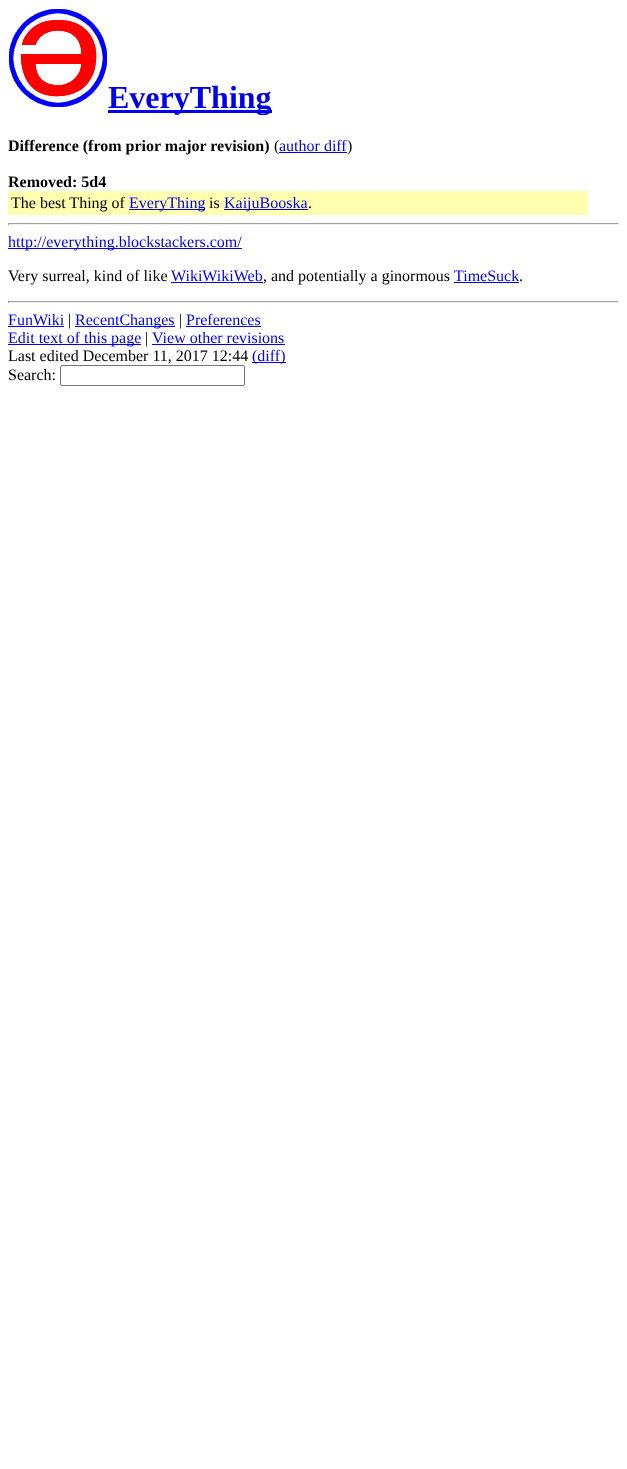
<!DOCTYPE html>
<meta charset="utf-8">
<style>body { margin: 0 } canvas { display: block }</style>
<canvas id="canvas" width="627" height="1469"></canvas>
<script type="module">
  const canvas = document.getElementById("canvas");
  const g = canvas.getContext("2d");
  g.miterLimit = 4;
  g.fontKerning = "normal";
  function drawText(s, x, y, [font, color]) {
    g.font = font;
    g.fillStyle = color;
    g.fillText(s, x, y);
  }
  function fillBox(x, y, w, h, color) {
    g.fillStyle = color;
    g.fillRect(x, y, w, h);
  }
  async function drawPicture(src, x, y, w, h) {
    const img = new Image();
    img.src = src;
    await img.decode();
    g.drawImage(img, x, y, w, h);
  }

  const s1 = ["bold 32px Liberation Serif", "#0000EE"];
  const s2 = ["bold 16px Liberation Serif", "#000000"];
  const s3 = ["16px Liberation Serif", "#000000"];
  const s4 = ["16px Liberation Serif", "#0000EE"];

  fillBox(0, 0, 627, 1469, "#FFFFFF");
  await drawPicture("pic1.png", 9, 9, 98, 98);
  fillBox(108, 110, 164, 3, "#0000EE");
  drawText("EveryThing", 108, 108, s1);
  drawText("Difference (from prior major revision)", 8, 151, s2);
  drawText("(", 274, 151, s3);
  drawText("author diff", 279, 151, s4);
  fillBox(279, 152, 68, 1, "#0000EE");
  drawText(")", 347, 151, s3);
  drawText("Removed: 5d4", 8, 187, s2);
  fillBox(8, 191, 580, 24, "#FFFFAF");
  drawText("The best Thing of", 11, 208, s3);
  fillBox(129, 209, 76, 1, "#0000EE");
  drawText("EveryThing", 129, 208, s4);
  drawText("is", 209, 208, s3);
  fillBox(224, 209, 84, 1, "#0000EE");
  drawText("KaijuBooska", 224, 208, s4);
  drawText(".", 308, 208, s3);
  fillBox(8, 223, 611, 1, "#9F9F9F");
  fillBox(618, 223, 1, 2, "#EEEEEE");
  fillBox(8, 224, 611, 1, "#EEEEEE");
  fillBox(8, 223, 1, 2, "#9F9F9F");
  fillBox(8, 248, 234, 1, "#0000EE");
  drawText("http://everything.blockstackers.com/", 8, 247, s4);
  drawText("Very surreal, kind of like", 8, 281, s3);
  drawText("WikiWikiWeb", 171, 281, s4);
  fillBox(171, 282, 92, 1, "#0000EE");
  drawText(", and potentially a ginormous", 263, 281, s3);
  drawText("TimeSuck", 454, 281, s4);
  fillBox(454, 282, 65, 1, "#0000EE");
  drawText(".", 519, 281, s3);
  fillBox(8, 301, 611, 1, "#9F9F9F");
  fillBox(618, 301, 1, 2, "#EEEEEE");
  fillBox(8, 302, 611, 1, "#EEEEEE");
  fillBox(8, 301, 1, 2, "#9F9F9F");
  drawText("FunWiki", 8, 325, s4);
  fillBox(8, 326, 56, 1, "#0000EE");
  drawText("|", 68, 325, s3);
  fillBox(75, 326, 100, 1, "#0000EE");
  drawText("RecentChanges", 75, 325, s4);
  drawText("|", 179, 325, s3);
  drawText("Preferences", 186, 325, s4);
  fillBox(186, 326, 75, 1, "#0000EE");
  fillBox(8, 344, 133, 1, "#0000EE");
  drawText("Edit text of this page", 8, 343, s4);
  drawText("|", 145, 343, s3);
  drawText("View other revisions", 152, 343, s4);
  fillBox(152, 344, 133, 1, "#0000EE");
  drawText("Last edited December 11, 2017 12:44", 8, 361, s3);
  fillBox(252, 362, 34, 1, "#0000EE");
  drawText("(diff)", 252, 361, s4);
  drawText("Search:", 8, 380, s3);
  g.beginPath();
  g.roundRect(60.5, 365.5, 184, 20, 1.5);
  g.strokeStyle = "#767676";
  g.stroke();
</script>
